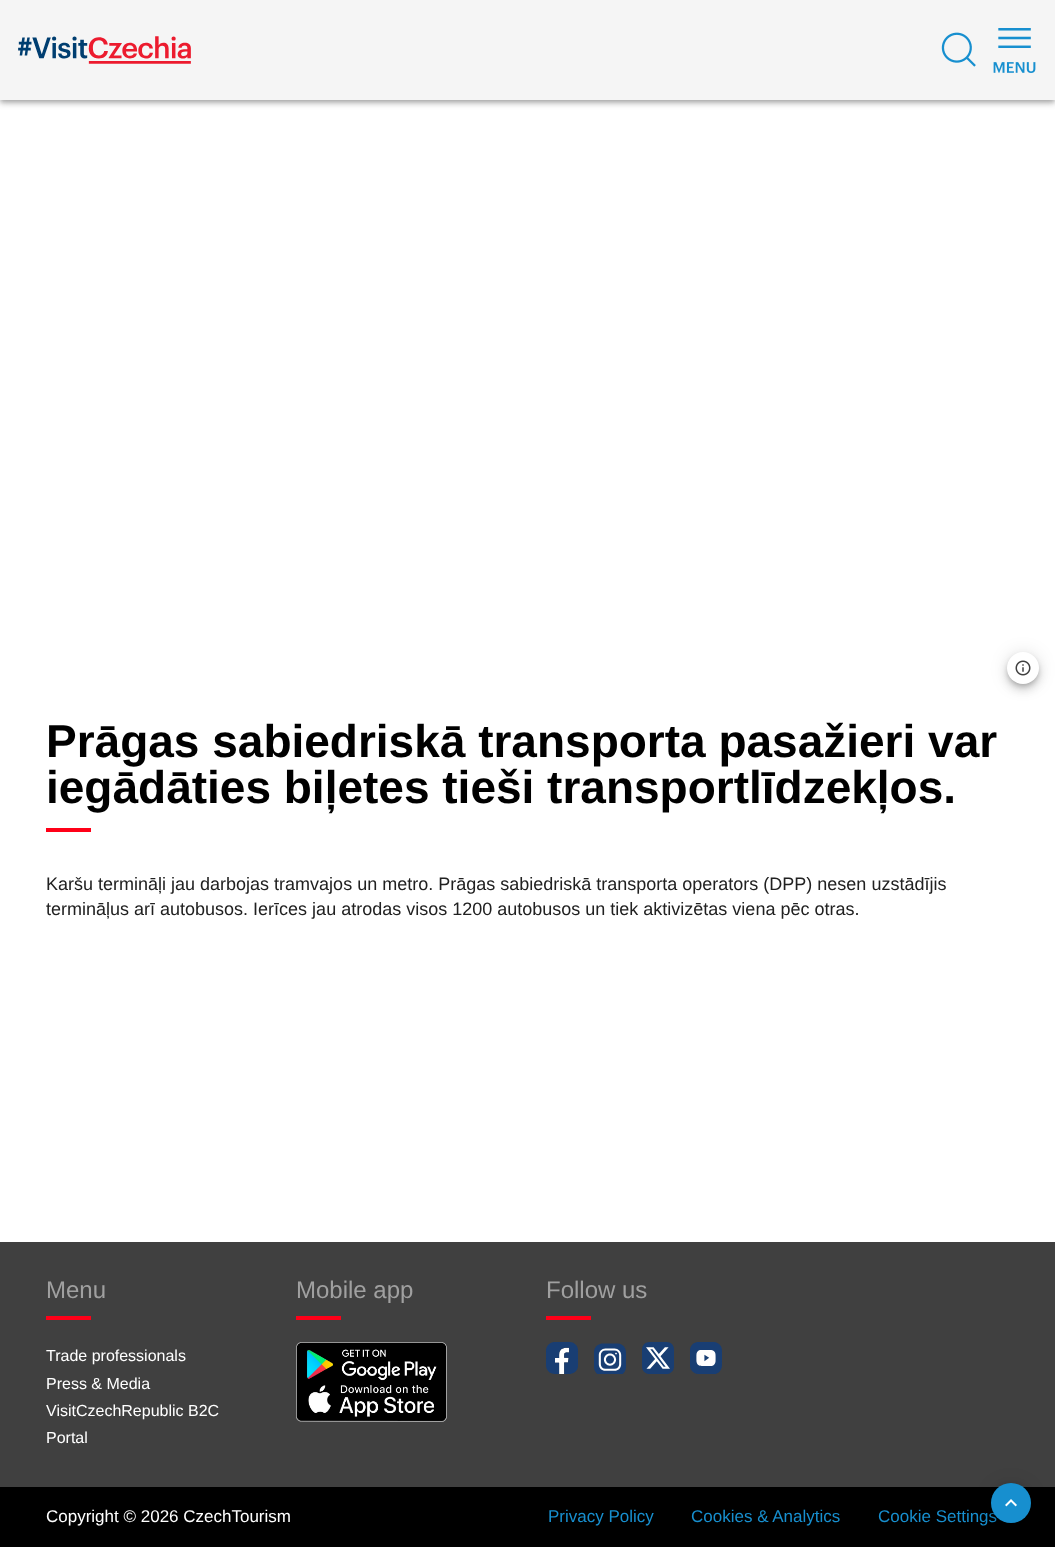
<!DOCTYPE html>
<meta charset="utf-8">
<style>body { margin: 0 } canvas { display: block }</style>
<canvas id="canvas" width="1055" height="1547"></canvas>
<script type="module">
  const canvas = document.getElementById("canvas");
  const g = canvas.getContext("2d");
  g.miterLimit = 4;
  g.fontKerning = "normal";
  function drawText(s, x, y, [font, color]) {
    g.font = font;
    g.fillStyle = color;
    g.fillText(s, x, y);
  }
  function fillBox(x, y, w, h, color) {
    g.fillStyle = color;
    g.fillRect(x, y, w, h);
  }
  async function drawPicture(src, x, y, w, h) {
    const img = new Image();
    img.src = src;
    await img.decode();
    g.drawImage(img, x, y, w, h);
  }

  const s1 = ["bold 46px Liberation Sans", "#000000"];
  const s2 = ["18px Liberation Sans", "#212121"];
  const s3 = ["24px Liberation Sans", "#A0A0A0"];
  const s4 = ["16px Liberation Sans", "#FFFFFF"];
  const s5 = ["17px Liberation Sans", "#FFFFFF"];
  const s6 = ["17px Liberation Sans", "#178FCF"];

  fillBox(0, 0, 1055, 1547, "#FFFFFF");
  g.fillStyle = "rgba(0, 0, 0, 0.12)";
  g.filter = "blur(5px)";
  g.beginPath();
  g.rect(0, 1, 1055, 100);
  g.fill();
  g.filter = "none";
  g.fillStyle = "rgba(0, 0, 0, 0.14)";
  g.filter = "blur(2.5px)";
  g.beginPath();
  g.rect(0, 4, 1055, 100);
  g.fill();
  g.filter = "none";
  g.fillStyle = "rgba(0, 0, 0, 0.2)";
  g.filter = "blur(2px)";
  g.beginPath();
  g.rect(1, 3, 1053, 98);
  g.fill();
  g.filter = "none";
  fillBox(0, 0, 1055, 100, "#F5F5F5");
  await drawPicture("pic1.png", 18, 36, 173, 28);
  await drawPicture("pic2.png", 941, 32, 35, 35);
  await drawPicture("pic3.png", 993, 28, 43, 45);
  g.fillStyle = "rgba(0, 0, 0, 0.12)";
  g.filter = "blur(9px)";
  g.beginPath();
  g.roundRect(1007, 653, 32, 32, 16);
  g.fill();
  g.filter = "none";
  g.fillStyle = "rgba(0, 0, 0, 0.14)";
  g.filter = "blur(5px)";
  g.beginPath();
  g.roundRect(1007, 658, 32, 32, 16);
  g.fill();
  g.filter = "none";
  g.fillStyle = "rgba(0, 0, 0, 0.2)";
  g.filter = "blur(2.5px)";
  g.beginPath();
  g.roundRect(1008, 656, 30, 30, 15);
  g.fill();
  g.filter = "none";
  g.fillStyle = "#FFFFFF";
  g.beginPath();
  g.arc(1023, 668, 16, 0, Math.PI * 2);
  g.fill();
  await drawPicture("pic4.png", 1015, 660, 16, 16);
  drawText("Prāgas sabiedriskā transporta pasažieri var", 46, 757, s1);
  drawText("iegādāties biļetes tieši transportlīdzekļos.", 46, 803, s1);
  fillBox(46, 828, 45, 4, "#FF0018");
  drawText("Karšu termināļi jau darbojas tramvajos un metro. Prāgas sabiedriskā transporta operators (DPP) nesen uzstādījis", 46, 890, s2);
  drawText("termināļus arī autobusos. Ierīces jau atrodas visos 1200 autobusos un tiek aktivizētas viena pēc otras.", 46, 915, s2);
  fillBox(0, 1242, 1055, 245, "#404040");
  drawText("Menu", 46, 1298, s3);
  fillBox(46, 1316, 45, 4, "#FF0018");
  drawText("Trade professionals", 46, 1361, s4);
  drawText("Press & Media", 46, 1389, s4);
  drawText("VisitCzechRepublic B2C", 46, 1416, s4);
  drawText("Portal", 46, 1443, s4);
  drawText("Mobile app", 296, 1298, s3);
  fillBox(296, 1316, 45, 4, "#FF0018");
  await drawPicture("pic5.png", 296, 1342, 151, 80);
  drawText("Follow us", 546, 1298, s3);
  fillBox(546, 1316, 45, 4, "#FF0018");
  await drawPicture("pic6.png", 546, 1342, 32, 32);
  await drawPicture("pic7.png", 594, 1343, 32, 31);
  await drawPicture("pic8.png", 642, 1342, 32, 32);
  await drawPicture("pic9.png", 690, 1342, 32, 32);
  fillBox(0, 1487, 1055, 60, "#000000");
  drawText("Copyright © 2026 CzechTourism", 46, 1522, s5);
  drawText("Privacy Policy", 548, 1522, s6);
  drawText("Cookies & Analytics", 691, 1522, s6);
  drawText("Cookie Settings", 878, 1522, s6);
  g.fillStyle = "rgba(0, 0, 0, 0.12)";
  g.filter = "blur(9px)";
  g.beginPath();
  g.roundRect(991, 1484, 40, 40, 20);
  g.fill();
  g.filter = "none";
  g.fillStyle = "rgba(0, 0, 0, 0.14)";
  g.filter = "blur(5px)";
  g.beginPath();
  g.roundRect(991, 1489, 40, 40, 20);
  g.fill();
  g.filter = "none";
  g.fillStyle = "rgba(0, 0, 0, 0.2)";
  g.filter = "blur(2.5px)";
  g.beginPath();
  g.roundRect(992, 1487, 38, 38, 19);
  g.fill();
  g.filter = "none";
  g.fillStyle = "#178FCF";
  g.beginPath();
  g.arc(1011, 1503, 20, 0, Math.PI * 2);
  g.fill();
  await drawPicture("pic10.png", 1005, 1499, 12, 8);
</script>
